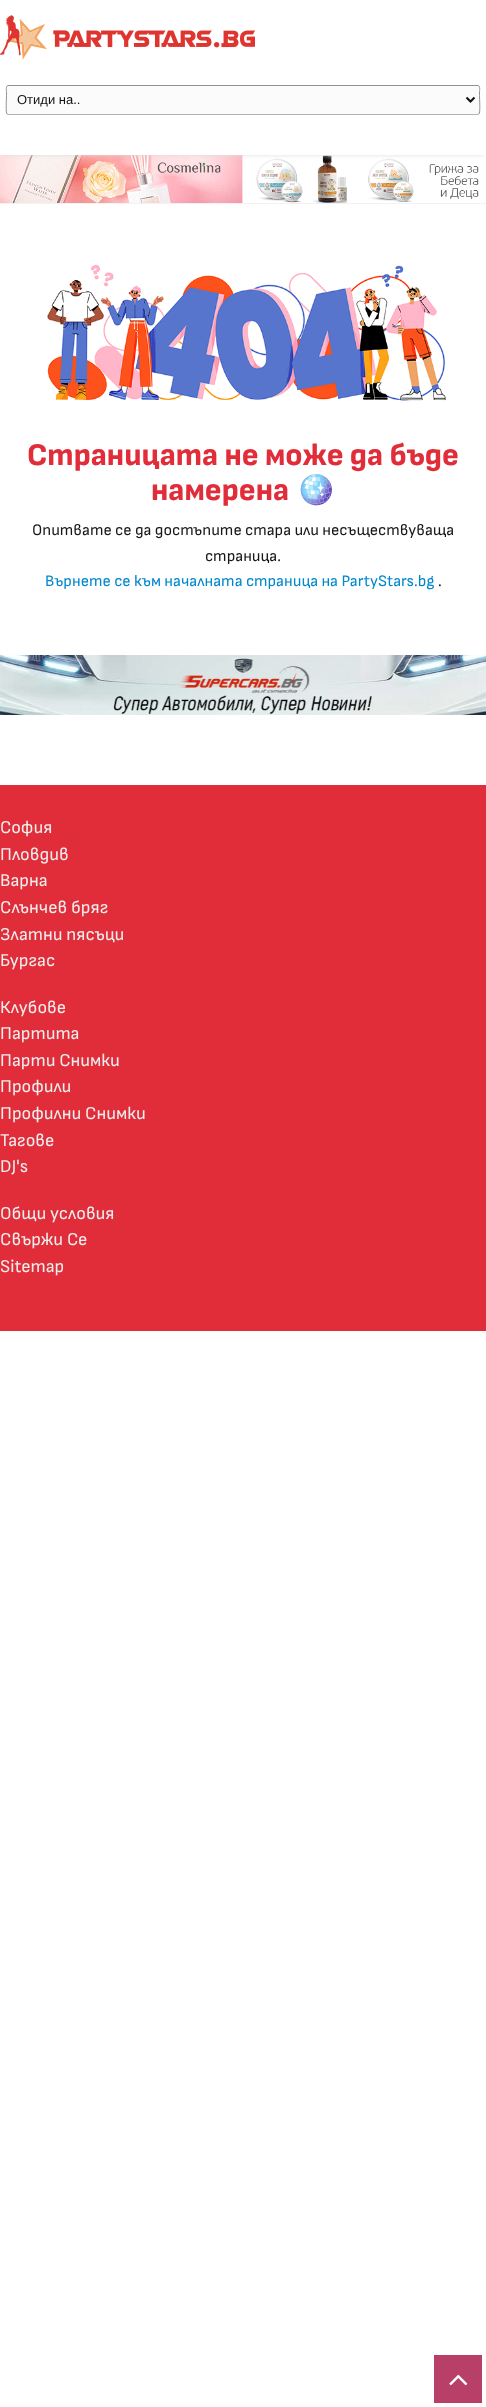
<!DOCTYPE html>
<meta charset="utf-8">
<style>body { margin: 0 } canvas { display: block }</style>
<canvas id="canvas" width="486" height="2407"></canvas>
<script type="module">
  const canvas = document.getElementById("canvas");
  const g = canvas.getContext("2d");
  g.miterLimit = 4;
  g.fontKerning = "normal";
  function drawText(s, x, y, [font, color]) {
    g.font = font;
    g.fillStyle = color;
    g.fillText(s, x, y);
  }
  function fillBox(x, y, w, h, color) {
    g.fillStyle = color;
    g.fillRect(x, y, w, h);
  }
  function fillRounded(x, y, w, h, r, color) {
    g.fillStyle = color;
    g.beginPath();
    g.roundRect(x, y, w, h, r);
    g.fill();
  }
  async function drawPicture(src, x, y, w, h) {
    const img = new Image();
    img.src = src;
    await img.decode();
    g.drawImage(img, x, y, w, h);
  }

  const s1 = ["13px Liberation Sans", "#111111"];
  const s2 = ["800 31.5px Sofia Sans", "#E12D39"];
  const s3 = ["bold 31.5px Noto Color Emoji", "#E12D39"];
  const s4 = ["16px Sofia Sans", "#181818"];
  const s5 = ["16px Sofia Sans", "#0088CC"];
  const s6 = ["18px Sofia Sans", "#EEEEEE"];

  fillBox(0, 0, 486, 2407, "#FFFFFF");
  await drawPicture("pic2.png", 0, 155, 479, 48);
  g.save();
  g.beginPath();
  g.rect(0, 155, 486, 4);
  g.clip();
  g.fillStyle = "#DDDDDD";
  g.filter = "blur(2px)";
  g.beginPath();
  g.rect(2, 4, 482, 151);
  g.fill();
  g.filter = "none";
  g.restore();
  await drawPicture("pic1.png", 0, 15, 255, 45);
  fillRounded(6, 85, 474, 30, 2, "#FBFBFB");
  g.beginPath();
  g.moveTo(479, 114);
  g.lineTo(478, 114.5);
  g.lineTo(8, 114.5);
  g.lineTo(7, 114);
  g.strokeStyle = "#B3B3B3";
  g.stroke();
  g.beginPath();
  g.moveTo(7, 114);
  g.bezierCurveTo(5.5, 113, 6.5, 98.5, 6.5, 95.5);
  g.lineTo(6.5, 91.5);
  g.bezierCurveTo(6.5, 91, 5.5, 85.5, 8, 85.5);
  g.lineTo(478, 85.5);
  g.bezierCurveTo(480.5, 85.5, 479.5, 91, 479.5, 91.5);
  g.lineTo(479.5, 95.5);
  g.bezierCurveTo(479.5, 98.5, 480.5, 113, 479, 114);
  g.strokeStyle = "#919191";
  g.stroke();
  g.beginPath();
  g.moveTo(466.5, 97.5);
  g.lineTo(470.5, 101.5);
  g.lineTo(474.5, 97.5);
  g.strokeStyle = "#111111";
  g.lineWidth = 2;
  g.stroke();
  drawText("Отиди на..", 17, 104, s1);
  fillBox(0, 203, 486, 1, "#F2F2F2");
  await drawPicture("pic3.png", 47, 264, 399, 137);
  drawText("Страницата не може да бъде", 27, 465, s2);
  drawText("намерена", 151, 500, s2);
  drawText("🪩", 296, 500, s3);
  drawText("Опитвате се да достъпите стара или несъществуваща", 32, 535, s4);
  drawText("страница.", 205, 561, s4);
  drawText("Върнете се към началната страница на PartyStars.bg", 45, 586, s5);
  drawText(".", 438, 586, s4);
  await drawPicture("pic4.png", 0, 655, 486, 60);
  fillBox(0, 785, 486, 546, "#E12D39");
  drawText("София", 0, 833, s6);
  drawText("Пловдив", 0, 860, s6);
  drawText("Варна", 0, 886, s6);
  drawText("Слънчев бряг", 0, 913, s6);
  drawText("Златни пясъци", 0, 940, s6);
  drawText("Бургас", 0, 966, s6);
  drawText("Клубове", 0, 1013, s6);
  drawText("Партита", 0, 1039, s6);
  drawText("Парти Снимки", 0, 1066, s6);
  drawText("Профили", 0, 1092, s6);
  drawText("Профилни Снимки", 0, 1119, s6);
  drawText("Тагове", 0, 1146, s6);
  drawText("DJ's", 0, 1172, s6);
  drawText("Общи условия", 0, 1219, s6);
  drawText("Свържи Се", 0, 1245, s6);
  drawText("Sitemap", 0, 1272, s6);
  fillBox(434, 2355, 48, 48, "#B83F67");
  await drawPicture("pic5.png", 449, 2374, 19, 12);
</script>
